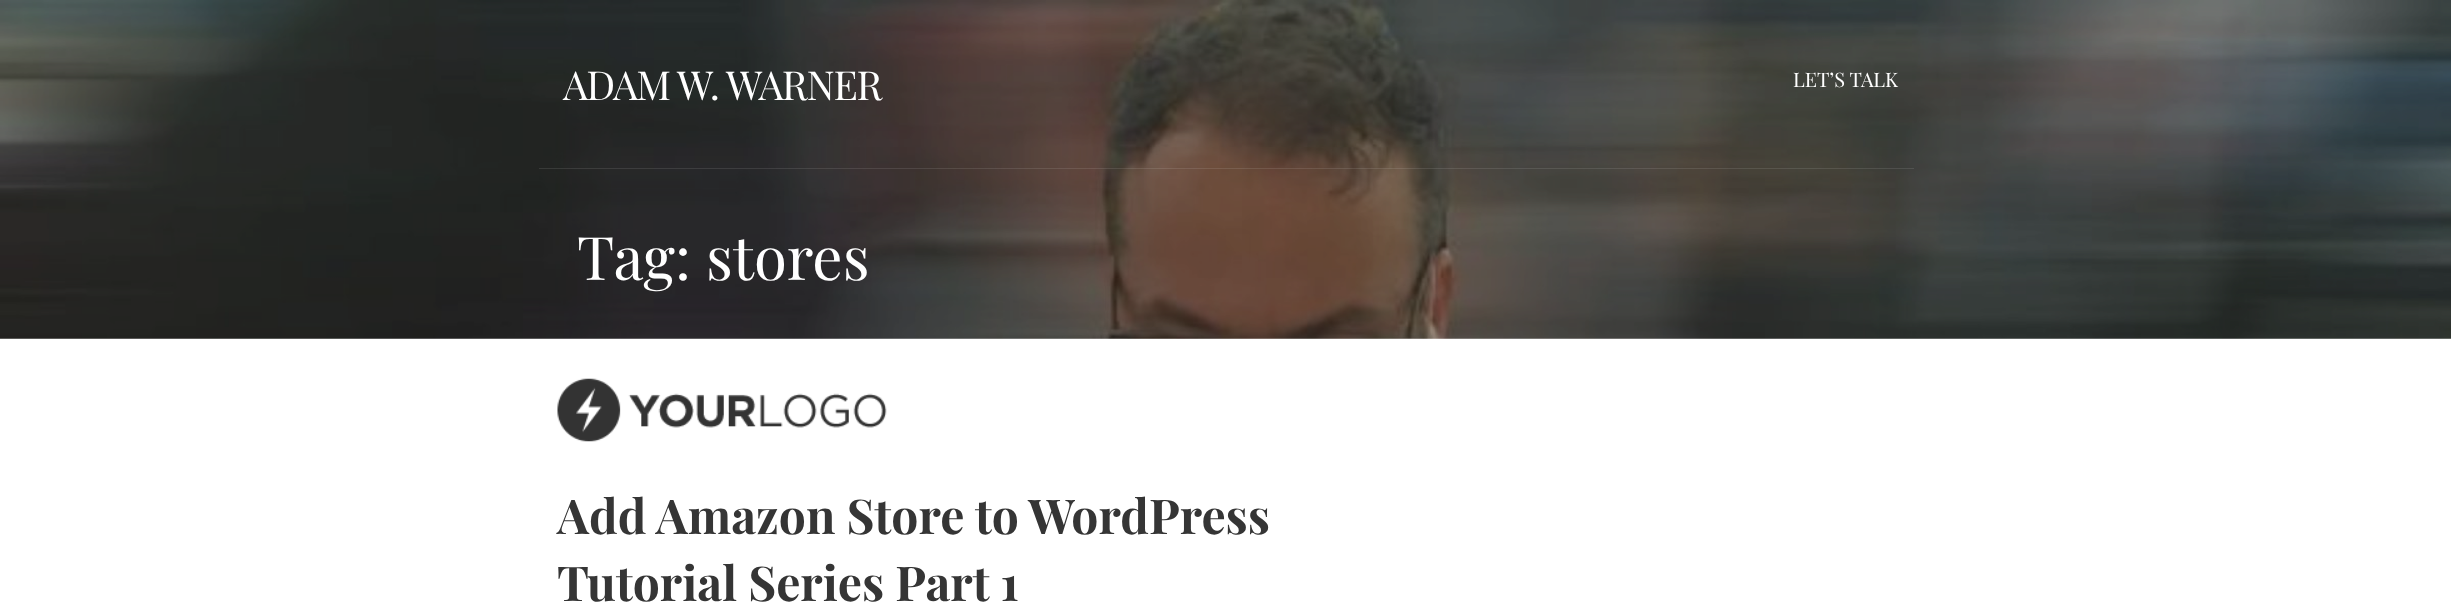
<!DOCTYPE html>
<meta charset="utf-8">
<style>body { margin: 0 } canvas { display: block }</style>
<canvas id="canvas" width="2451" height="607"></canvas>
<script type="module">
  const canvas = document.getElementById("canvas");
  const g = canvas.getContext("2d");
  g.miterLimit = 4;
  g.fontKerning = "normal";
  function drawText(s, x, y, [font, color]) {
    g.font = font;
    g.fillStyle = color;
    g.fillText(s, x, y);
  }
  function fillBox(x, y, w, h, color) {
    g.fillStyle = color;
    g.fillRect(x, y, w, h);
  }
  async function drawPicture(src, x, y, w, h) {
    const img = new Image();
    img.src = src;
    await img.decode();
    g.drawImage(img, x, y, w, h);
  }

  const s1 = ["40px Playfair Display", "#FFFFFF"];
  const s2 = ["20px Playfair Display", "#FFFFFF"];
  const s3 = ["60px Playfair Display", "#FFFFFF"];
  const s4 = ["bold 48px Playfair Display", "#353535"];

  fillBox(0, 0, 2451, 607, "#FFFFFF");
  await drawPicture("pic1.png", 0, 0, 2451, 339);
  fillBox(539, 168, 1375, 1, "rgba(255, 255, 255, 0.1)");
  g.letterSpacing = "-1.25px";
  drawText("ADAM W. WARNER", 563, 100, s1);
  g.letterSpacing = "0px";
  drawText("LET’S TALK", 1793, 87, s2);
  drawText("Tag: stores", 577, 280, s3);
  await drawPicture("pic2.png", 557, 378, 330, 64);
  drawText("Add Amazon Store to WordPress", 557, 534, s4);
  drawText("Tutorial Series Part 1", 557, 601, s4);
</script>
